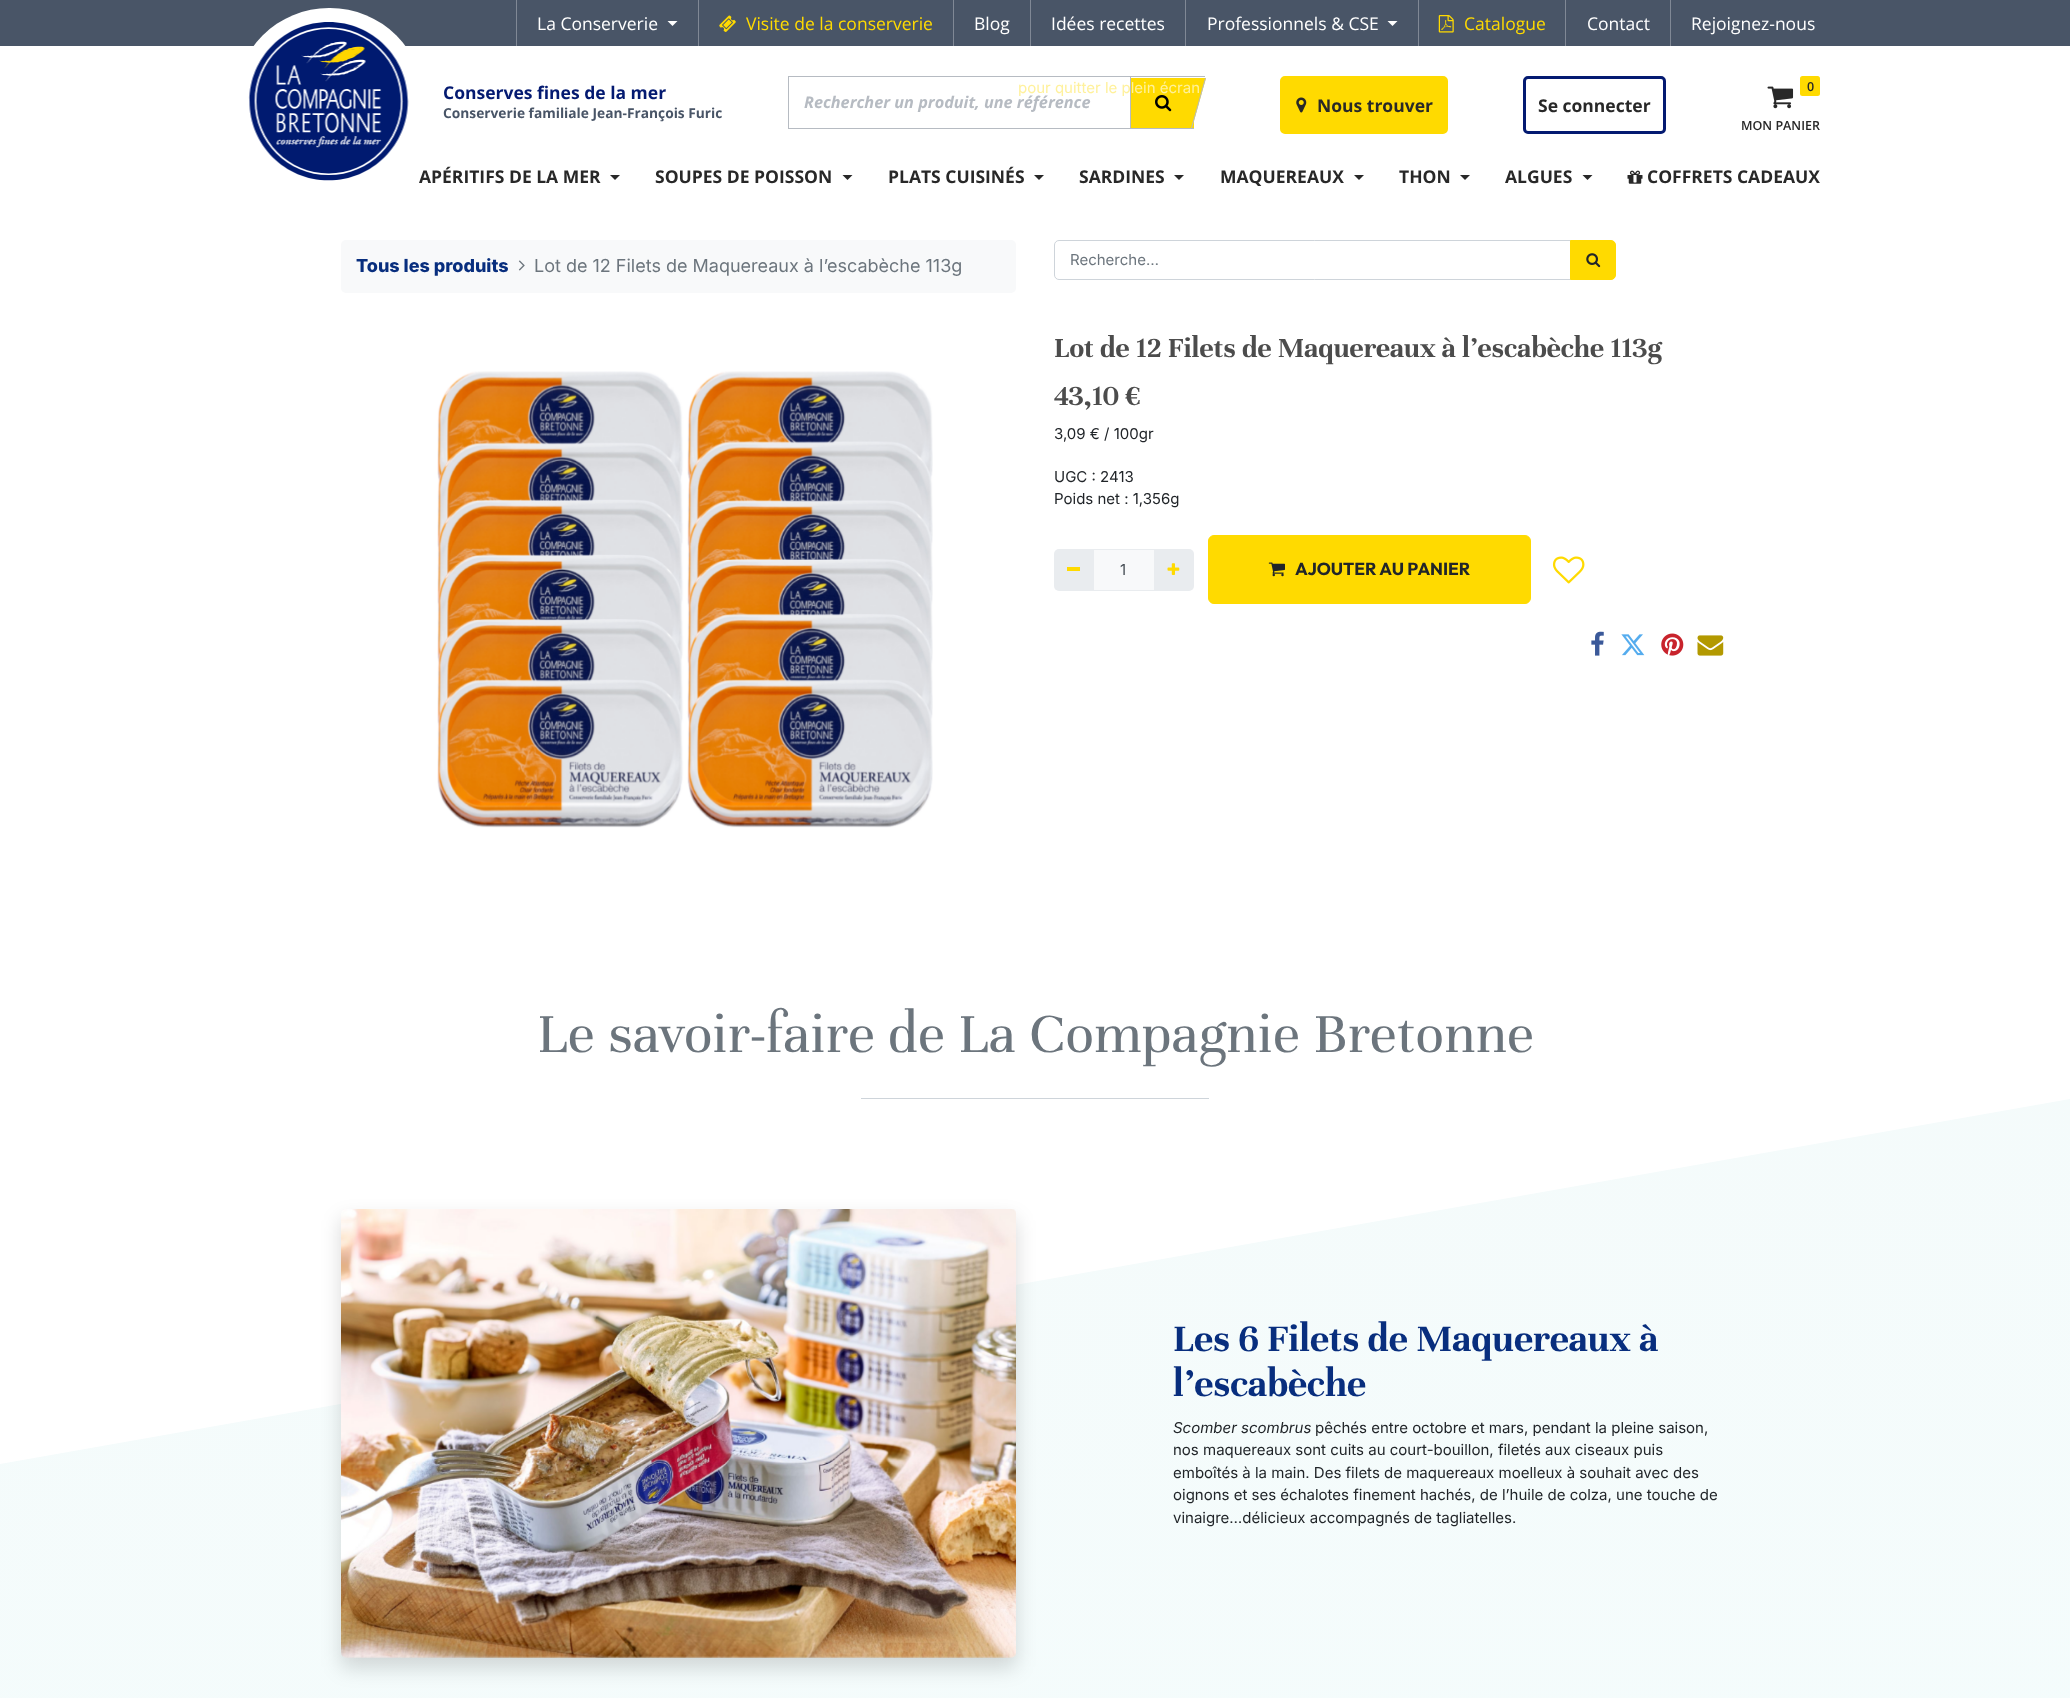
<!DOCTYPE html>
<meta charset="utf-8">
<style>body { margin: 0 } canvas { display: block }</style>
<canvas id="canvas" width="2070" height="1707"></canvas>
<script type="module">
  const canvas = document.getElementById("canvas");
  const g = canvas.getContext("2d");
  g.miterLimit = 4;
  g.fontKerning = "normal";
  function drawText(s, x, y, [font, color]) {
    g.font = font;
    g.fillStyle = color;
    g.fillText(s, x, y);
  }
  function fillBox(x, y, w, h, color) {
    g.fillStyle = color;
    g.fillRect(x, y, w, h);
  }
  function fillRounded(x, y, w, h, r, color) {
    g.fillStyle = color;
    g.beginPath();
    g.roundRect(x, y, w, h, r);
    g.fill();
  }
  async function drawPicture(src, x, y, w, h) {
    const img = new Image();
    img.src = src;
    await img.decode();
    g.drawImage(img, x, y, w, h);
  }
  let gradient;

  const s1 = ["17.5px Open Sans", "#FFFFFF"];
  const s2 = ["17.5px Open Sans", "#FFDA00"];
  const s3 = ["bold 17.5px Open Sans", "#041A71"];
  const s4 = ["bold 13.75px Open Sans", "#495567"];
  const s5 = ["italic bold 16.25px Open Sans", "#B6BBC2"];
  const s6 = ["bold 17.5px Open Sans", "#282828"];
  const s7 = ["600 12.5px Open Sans", "#282828"];
  const s8 = ["800 18px Inter", "#082E7E"];
  const s9 = ["18px Inter", "#6C757D"];
  const s10 = ["15px Inter", "#6C757D"];
  const s11 = ["bold 30px Unna", "#4C4C4C"];
  const s12 = ["15px Inter", "#212529"];
  const s13 = ["15px Inter", "#495057"];
  const s14 = ["bold 17.5px Outfit", "#212529"];
  const s15 = ["60px Unna", "#6C757D"];
  const s16 = ["bold 40.75px Unna", "#082E7E"];
  const s17 = ["italic 15px Inter", "#212529"];
  const s18 = ["15px Inter", "#FFF19C"];

  fillBox(0, 0, 2070, 1707, "#FFFFFF");
  fillBox(0, 0, 2070, 46, "#495567");
  fillBox(516, 0, 1, 46, "#808895");
  drawText("La Conserverie", 537, 30, s1);
  g.beginPath();
  g.moveTo(667.5, 21);
  g.lineTo(677.5, 21);
  g.lineTo(672.5, 26);
  g.closePath();
  g.fill();
  fillBox(698, 0, 1, 46, "#808895");
  await drawPicture("pic1.png", 719, 15, 17, 17);
  drawText("Visite de la conserverie", 746, 30, s2);
  fillBox(953, 0, 1, 46, "#808895");
  drawText("Blog", 974, 30, s1);
  fillBox(1030, 0, 1, 46, "#808895");
  drawText("Idées recettes", 1051, 30, s1);
  fillBox(1185, 0, 1, 46, "#808895");
  drawText("Professionnels & CSE", 1207, 30, s1);
  g.beginPath();
  g.moveTo(1387.5, 21);
  g.lineTo(1397.5, 21);
  g.lineTo(1392.5, 26);
  g.closePath();
  g.fill();
  fillBox(1418, 0, 1, 46, "#808895");
  await drawPicture("pic2.png", 1438, 15, 16, 18);
  drawText("Catalogue", 1464, 30, s2);
  fillBox(1565, 0, 1, 46, "#808895");
  drawText("Contact", 1587, 30, s1);
  fillBox(1670, 0, 1, 46, "#808895");
  drawText("Rejoignez-nous", 1691, 30, s1);
  fillRounded(235, 8, 189, 188, 94, "#FFFFFF");
  await drawPicture("pic3.png", 248, 22, 161, 159);
  drawText("Conserves fines de la mer", 443, 99, s3);
  drawText("Conserverie familiale Jean-François Furic", 443, 118, s4);
  g.strokeStyle = "#B6BBC2";
  g.strokeRect(788.5, 76.5, 342, 52);
  drawText("Rechercher un produit, une référence", 804, 108, s5);
  fillBox(1131, 76, 74, 1, "#B6BBC2");
  fillBox(1131, 78, 63, 50, "#FFDA00");
  fillBox(1131, 128, 63, 1, "#B6BBC2");
  await drawPicture("pic4.png", 1155, 95, 17, 17);
  g.fillStyle = "#FFDA00";
  g.beginPath();
  g.moveTo(1194, 78);
  g.lineTo(1206, 78);
  g.lineTo(1192, 128);
  g.lineTo(1181, 128);
  g.closePath();
  g.fill();
  g.fillStyle = "#B6BBC2";
  g.beginPath();
  g.moveTo(1205, 78);
  g.lineTo(1206, 78);
  g.lineTo(1192, 128);
  g.lineTo(1191, 128);
  g.closePath();
  g.fill();
  g.fillStyle = "#FFDA00";
  g.beginPath();
  g.roundRect(1281.5, 77.5, 165, 55, 3.5);
  g.fill();
  g.strokeStyle = "#FFDA00";
  g.lineWidth = 3;
  g.stroke();
  await drawPicture("pic5.png", 1296, 97, 11, 16);
  drawText("Nous trouver", 1317, 112, s6);
  g.beginPath();
  g.roundRect(1524.5, 77.5, 140, 55, 3.5);
  g.strokeStyle = "#041A71";
  g.stroke();
  drawText("Se connecter", 1538, 112, s6);
  await drawPicture("pic6.png", 1767, 86, 27, 23);
  fillRounded(1800, 76, 20, 20, 2.5, "#FFDA00");
  drawText("0", 1807, 91, s7);
  drawText("MON PANIER", 1741, 130, s7);
  drawText("APÉRITIFS DE LA MER", 419, 183, s6);
  g.beginPath();
  g.moveTo(610, 175);
  g.lineTo(620, 175);
  g.lineTo(615, 180);
  g.closePath();
  g.fill();
  drawText("SOUPES DE POISSON", 655, 183, s6);
  g.beginPath();
  g.moveTo(842.5, 175);
  g.lineTo(852.5, 175);
  g.lineTo(847.5, 180);
  g.closePath();
  g.fill();
  drawText("PLATS CUISINÉS", 888, 183, s6);
  g.beginPath();
  g.moveTo(1034, 175);
  g.lineTo(1044, 175);
  g.lineTo(1039, 180);
  g.closePath();
  g.fill();
  drawText("SARDINES", 1079, 183, s6);
  g.beginPath();
  g.moveTo(1174, 175);
  g.lineTo(1184, 175);
  g.lineTo(1179, 180);
  g.closePath();
  g.fill();
  drawText("MAQUEREAUX", 1220, 183, s6);
  g.beginPath();
  g.moveTo(1354, 175);
  g.lineTo(1364, 175);
  g.lineTo(1359, 180);
  g.closePath();
  g.fill();
  drawText("THON", 1399, 183, s6);
  g.beginPath();
  g.moveTo(1460, 175);
  g.lineTo(1470, 175);
  g.lineTo(1465, 180);
  g.closePath();
  g.fill();
  drawText("ALGUES", 1505, 183, s6);
  g.beginPath();
  g.moveTo(1582.5, 175);
  g.lineTo(1592.5, 175);
  g.lineTo(1587.5, 180);
  g.closePath();
  g.fill();
  await drawPicture("pic7.png", 1627, 170, 16, 14);
  drawText("COFFRETS CADEAUX", 1647, 183, s6);
  fillRounded(341, 240, 675, 53, 5, "#F8F9FA");
  drawText("Tous les produits", 356, 272, s8);
  await drawPicture("pic8.png", 518, 260, 7, 11);
  drawText("Lot de 12 Filets de Maquereaux à l’escabèche 113g", 534, 272, s9);
  g.beginPath();
  g.roundRect(1054.5, 240.5, 516, 39, [4.5, 0, 0, 4.5]);
  g.strokeStyle = "#CED4DA";
  g.lineWidth = 1;
  g.stroke();
  drawText("Recherche…", 1070, 265, s10);
  g.fillStyle = "#FFDA00";
  g.beginPath();
  g.roundRect(1570.5, 240.5, 45, 39, [0, 4.5, 4.5, 0]);
  g.fill();
  g.strokeStyle = "#FFDA00";
  g.stroke();
  await drawPicture("pic9.png", 1586, 253, 15, 15);
  await drawPicture("pic10.png", 437, 371, 496, 457);
  drawText("Lot de 12 Filets de Maquereaux à l’escabèche 113g", 1054, 357, s11);
  drawText("43,10 €", 1054, 405, s11);
  drawText("3,09 € / 100gr", 1054, 439, s12);
  drawText("UGC : 2413", 1054, 482, s12);
  drawText("Poids net : 1,356g", 1054, 504, s12);
  g.fillStyle = "#F8F9FA";
  g.beginPath();
  g.rect(1093.5, 549.5, 61, 41);
  g.fill();
  g.strokeStyle = "#E9ECEF";
  g.stroke();
  g.fillStyle = "#E9ECEF";
  g.beginPath();
  g.roundRect(1054, 549, 40, 42, [5, 0, 0, 5]);
  g.fill();
  fillBox(1067, 567, 13, 4, "#FFDA00");
  drawText("1", 1120, 575, s13);
  g.fillStyle = "#E9ECEF";
  g.beginPath();
  g.roundRect(1154, 549, 40, 42, [0, 5, 5, 0]);
  g.fill();
  await drawPicture("pic11.png", 1167, 563, 13, 12);
  g.fillStyle = "#FFDA00";
  g.beginPath();
  g.roundRect(1208.5, 535.5, 322, 68, 5.5);
  g.fill();
  g.strokeStyle = "#FFDA00";
  g.stroke();
  await drawPicture("pic12.png", 1268, 562, 17, 15);
  drawText("AJOUTER AU PANIER", 1295, 575, s14);
  await drawPicture("pic13.png", 1552, 556, 33, 28);
  await drawPicture("pic14.png", 1591, 631, 13, 25);
  await drawPicture("pic15.png", 1621, 634, 24, 22);
  await drawPicture("pic16.png", 1661, 633, 23, 23);
  await drawPicture("pic17.png", 1697, 635, 27, 21);
  drawText("Le savoir-faire de La Compagnie Bretonne", 537, 1052, s15);
  fillBox(861, 1098, 348, 1, "#CED4DA");
  gradient = g.createLinearGradient(1092, 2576, 843, -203);
  gradient.addColorStop(0, "#F4FDFD");
  gradient.addColorStop(1, "#F5F9F9");
  g.fillStyle = gradient;
  g.fillRect(0, 1099, 2070, 599);
  g.fillStyle = "#FFFFFF";
  g.beginPath();
  g.moveTo(2070, 1099);
  g.lineTo(0, 1464);
  g.lineTo(0, 1099);
  g.closePath();
  g.fill();
  g.fillStyle = "rgba(0, 0, 0, 0.15)";
  g.filter = "blur(10px)";
  g.beginPath();
  g.roundRect(341, 1219, 675, 449, 5);
  g.fill();
  g.filter = "none";
  await drawPicture("pic18.png", 341, 1209, 675, 449);
  drawText("Les 6 Filets de Maquereaux à", 1173, 1351, s16);
  drawText("l’escabèche", 1173, 1396, s16);
  drawText("Scomber scombrus", 1173, 1433, s17);
  drawText("pêchés entre octobre et mars, pendant la pleine saison,", 1315, 1433, s12);
  drawText("nos maquereaux sont cuits au court-bouillon, filetés aux ciseaux puis", 1173, 1455, s12);
  drawText("emboîtés à la main. Des filets de maquereaux moelleux à souhait avec des", 1173, 1478, s12);
  drawText("oignons et ses échalotes finement hachés, de l’huile de colza, une touche de", 1173, 1500, s12);
  drawText("vinaigre…délicieux accompagnés de tagliatelles.", 1173, 1523, s12);
  drawText("pour quitter le plein écran", 1018, 93, s18);
</script>
